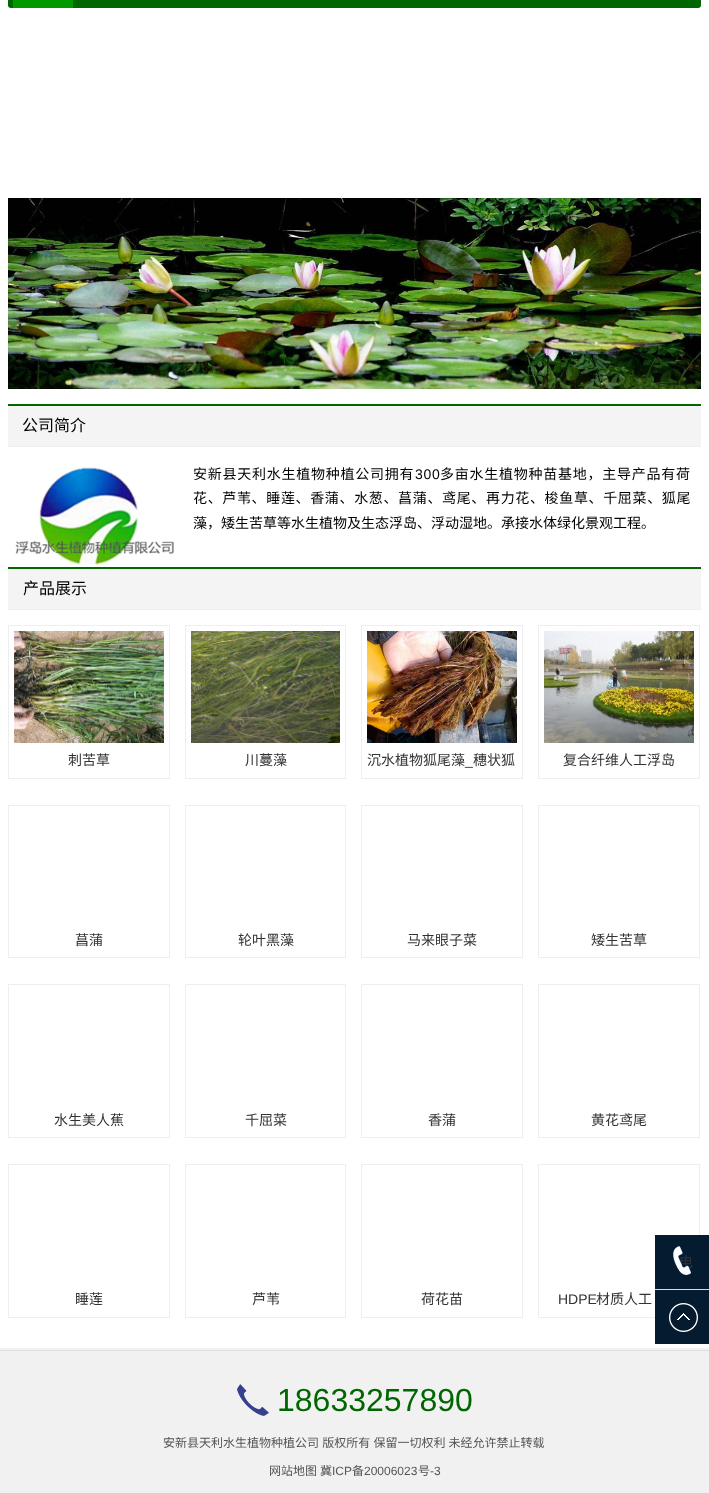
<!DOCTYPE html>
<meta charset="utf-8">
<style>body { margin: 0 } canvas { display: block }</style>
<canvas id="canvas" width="709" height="1493"></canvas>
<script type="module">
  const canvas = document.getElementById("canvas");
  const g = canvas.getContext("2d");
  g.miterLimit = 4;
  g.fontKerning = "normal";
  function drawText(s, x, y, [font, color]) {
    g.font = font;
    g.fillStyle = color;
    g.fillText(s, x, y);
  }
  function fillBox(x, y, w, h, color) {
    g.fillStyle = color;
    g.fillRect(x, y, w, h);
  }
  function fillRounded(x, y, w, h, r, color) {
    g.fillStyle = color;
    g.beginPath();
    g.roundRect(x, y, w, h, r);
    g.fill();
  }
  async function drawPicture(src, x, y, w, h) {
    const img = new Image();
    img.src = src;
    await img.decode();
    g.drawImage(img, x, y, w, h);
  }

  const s1 = ["16px Noto Sans CJK SC", "#000000"];
  const s2 = ["14px Noto Sans CJK SC", "#000000"];
  const s3 = ["14px Liberation Sans", "#000000"];
  const s4 = ["14px Noto Sans CJK SC", "#333333"];
  const s5 = ["14px Liberation Sans", "#333333"];
  const s6 = ["32px Liberation Sans", "#006600"];
  const s7 = ["12px Noto Sans CJK SC", "#555555"];
  const s8 = ["12px Liberation Sans", "#555555"];

  fillBox(0, 0, 709, 1493, "#FFFFFF");
  fillRounded(8, -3, 693, 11, 3, "#006600");
  fillBox(13, 0, 60, 8, "#009900");
  await drawPicture("pic1.png", 8, 198, 693, 191);
  fillBox(8, 406, 693, 40, "#F4F4F4");
  fillBox(8, 404, 693, 2, "#006600");
  fillBox(8, 446, 693, 1, "#EEEEEE");
  drawText("公司简介", 22, 431, s1);
  await drawPicture("pic2.png", 15, 467, 159, 98);
  g.letterSpacing = "0.75px";
  drawText("安新县天利水生植物种植公司拥有", 193, 479, s2);
  drawText("300", 415, 479, s3);
  drawText("多亩水生植物种苗基地，主导产品有荷", 440, 479, s2);
  g.letterSpacing = "0.65px";
  drawText("花、芦苇、睡莲、香蒲、水葱、菖蒲、鸢尾、再力花、梭鱼草、千屈菜、狐尾", 193, 503, s2);
  g.letterSpacing = "0px";
  drawText("藻，矮生苦草等水生植物及生态浮岛、浮动湿地。承接水体绿化景观工程。", 193, 528, s2);
  fillBox(8, 569, 693, 40, "#F4F4F4");
  fillBox(8, 567, 693, 2, "#006600");
  fillBox(8, 609, 693, 1, "#EEEEEE");
  drawText("产品展示", 23, 594, s1);
  g.strokeStyle = "#EEEEEE";
  g.strokeRect(8.5, 625.5, 161, 153);
  await drawPicture("pic3.png", 14, 631, 150, 112);
  drawText("刺苦草", 68, 765, s4);
  g.strokeRect(185.5, 625.5, 160, 153);
  await drawPicture("pic4.png", 191, 631, 149, 112);
  drawText("川蔓藻", 245, 765, s4);
  g.strokeRect(361.5, 625.5, 161, 153);
  await drawPicture("pic5.png", 367, 631, 150, 112);
  drawText("沉水植物狐尾藻", 367, 765, s4);
  drawText("_", 465, 765, s5);
  drawText("穗状狐", 473, 765, s4);
  g.strokeRect(538.5, 625.5, 161, 153);
  await drawPicture("pic6.png", 544, 631, 150, 112);
  drawText("复合纤维人工浮岛", 563, 765, s4);
  g.strokeRect(8.5, 805.5, 161, 152);
  drawText("菖蒲", 75, 945, s4);
  g.strokeRect(185.5, 805.5, 160, 152);
  drawText("轮叶黑藻", 238, 945, s4);
  g.strokeRect(361.5, 805.5, 161, 152);
  drawText("马来眼子菜", 407, 945, s4);
  g.strokeRect(538.5, 805.5, 161, 152);
  drawText("矮生苦草", 591, 945, s4);
  g.strokeRect(8.5, 984.5, 161, 153);
  drawText("水生美人蕉", 54, 1125, s4);
  g.strokeRect(185.5, 984.5, 160, 153);
  drawText("千屈菜", 245, 1125, s4);
  g.strokeRect(361.5, 984.5, 161, 153);
  drawText("香蒲", 428, 1125, s4);
  g.strokeRect(538.5, 984.5, 161, 153);
  drawText("黄花鸢尾", 591, 1125, s4);
  g.strokeRect(8.5, 1164.5, 161, 153);
  drawText("睡莲", 75, 1304, s4);
  g.strokeRect(185.5, 1164.5, 160, 153);
  drawText("芦苇", 252, 1304, s4);
  g.strokeRect(361.5, 1164.5, 161, 153);
  drawText("荷花苗", 421, 1304, s4);
  g.strokeRect(538.5, 1164.5, 161, 153);
  drawText("HDPE", 558, 1304, s5);
  drawText("材质人工", 596, 1304, s4);
  fillBox(655, 1235, 54, 54, "#051C30");
  fillBox(655, 1289, 54, 1, "#DDDDDD");
  drawText("电", 679, 1267, s4);
  await drawPicture("pic7.png", 673, 1246, 18, 29);
  fillBox(655, 1290, 54, 54, "#051C30");
  await drawPicture("pic8.png", 669, 1303, 29, 29);
  fillBox(0, 1348, 709, 145, "#F1F1F1");
  fillBox(0, 1350, 709, 1, "#DEDEDE");
  await drawPicture("pic9.png", 237, 1384, 32, 32);
  drawText("18633257890", 277, 1411, s6);
  g.wordSpacing = "0.5px";
  drawText("安新县天利水生植物种植公司 版权所有 保留一切权利 未经允许禁止转载", 163, 1447, s7);
  g.wordSpacing = "0px";
  drawText("网站地图", 269, 1475, s7);
  drawText("冀", 320, 1475, s7);
  drawText("ICP", 332, 1475, s8);
  drawText("备", 352, 1475, s7);
  drawText("20006023", 364, 1475, s8);
  drawText("号", 418, 1475, s7);
  drawText("-3", 430, 1475, s8);
</script>
